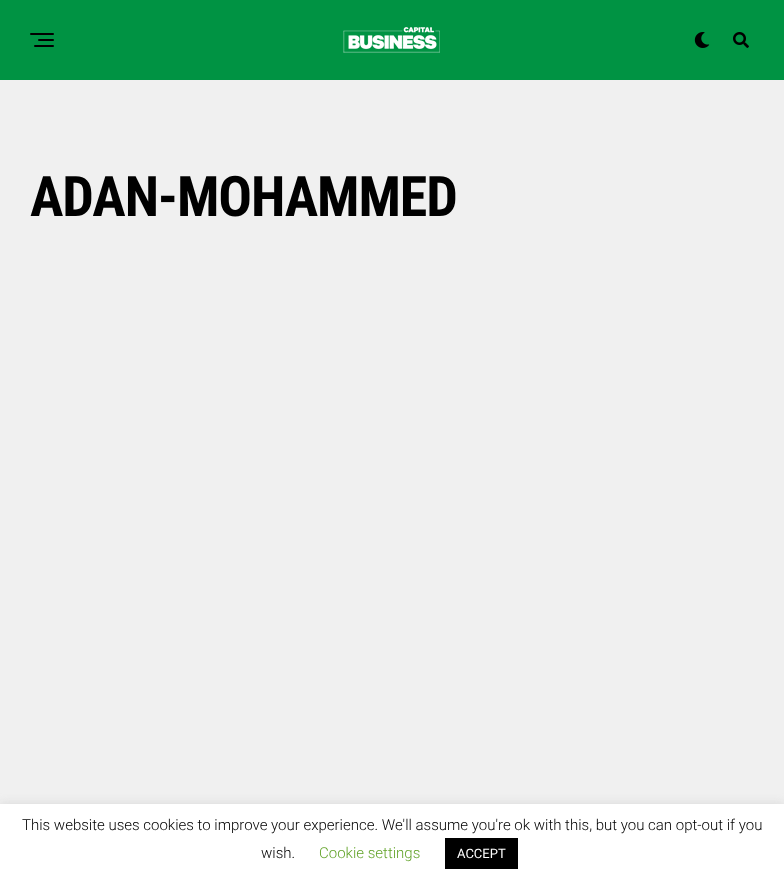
<!DOCTYPE html>
<meta charset="utf-8">
<style>body { margin: 0 } canvas { display: block }</style>
<canvas id="canvas" width="784" height="886"></canvas>
<script type="module">
  const canvas = document.getElementById("canvas");
  const g = canvas.getContext("2d");
  g.miterLimit = 4;
  g.fontKerning = "normal";
  function drawText(s, x, y, [font, color]) {
    g.font = font;
    g.fillStyle = color;
    g.fillText(s, x, y);
  }
  function fillBox(x, y, w, h, color) {
    g.fillStyle = color;
    g.fillRect(x, y, w, h);
  }
  function fillRounded(x, y, w, h, r, color) {
    g.fillStyle = color;
    g.beginPath();
    g.roundRect(x, y, w, h, r);
    g.fill();
  }
  async function drawPicture(src, x, y, w, h) {
    const img = new Image();
    img.src = src;
    await img.decode();
    g.drawImage(img, x, y, w, h);
  }

  const s1 = ["bold 56px Roboto Condensed", "#000000"];
  const s2 = ["300 15px Roboto", "#000000"];
  const s3 = ["300 15px Roboto", "#62A329"];
  const s4 = ["13px Roboto", "#FFFFFF"];

  fillBox(0, 0, 784, 886, "#F0F0F0");
  fillBox(0, 0, 784, 80, "#009343");
  fillRounded(30, 33, 24, 2, 1, "#000000");
  fillRounded(38, 39, 16, 2, 1, "#000000");
  fillRounded(34, 45, 20, 2, 1, "#000000");
  await drawPicture("pic1.png", 343, 27, 97, 26);
  await drawPicture("pic2.png", 694, 32, 16, 16);
  await drawPicture("pic3.png", 733, 32, 16, 16);
  g.letterSpacing = "-1.1px";
  drawText("ADAN-MOHAMMED", 30, 216, s1);
  g.fillStyle = "rgba(172, 171, 171, 0.3)";
  g.filter = "blur(5px)";
  g.beginPath();
  g.rect(0, 803, 784, 82);
  g.fill();
  g.filter = "none";
  fillBox(0, 804, 784, 82, "#FFFFFF");
  g.letterSpacing = "0px";
  drawText("This website uses cookies to improve your experience. We'll assume you're ok with this, but you can opt-out if you", 22, 830, s2);
  drawText("wish.", 261, 858, s2);
  drawText("Cookie settings", 319, 858, s3);
  fillBox(445, 838, 73, 31, "#000000");
  drawText("ACCEPT", 457, 858, s4);
</script>
